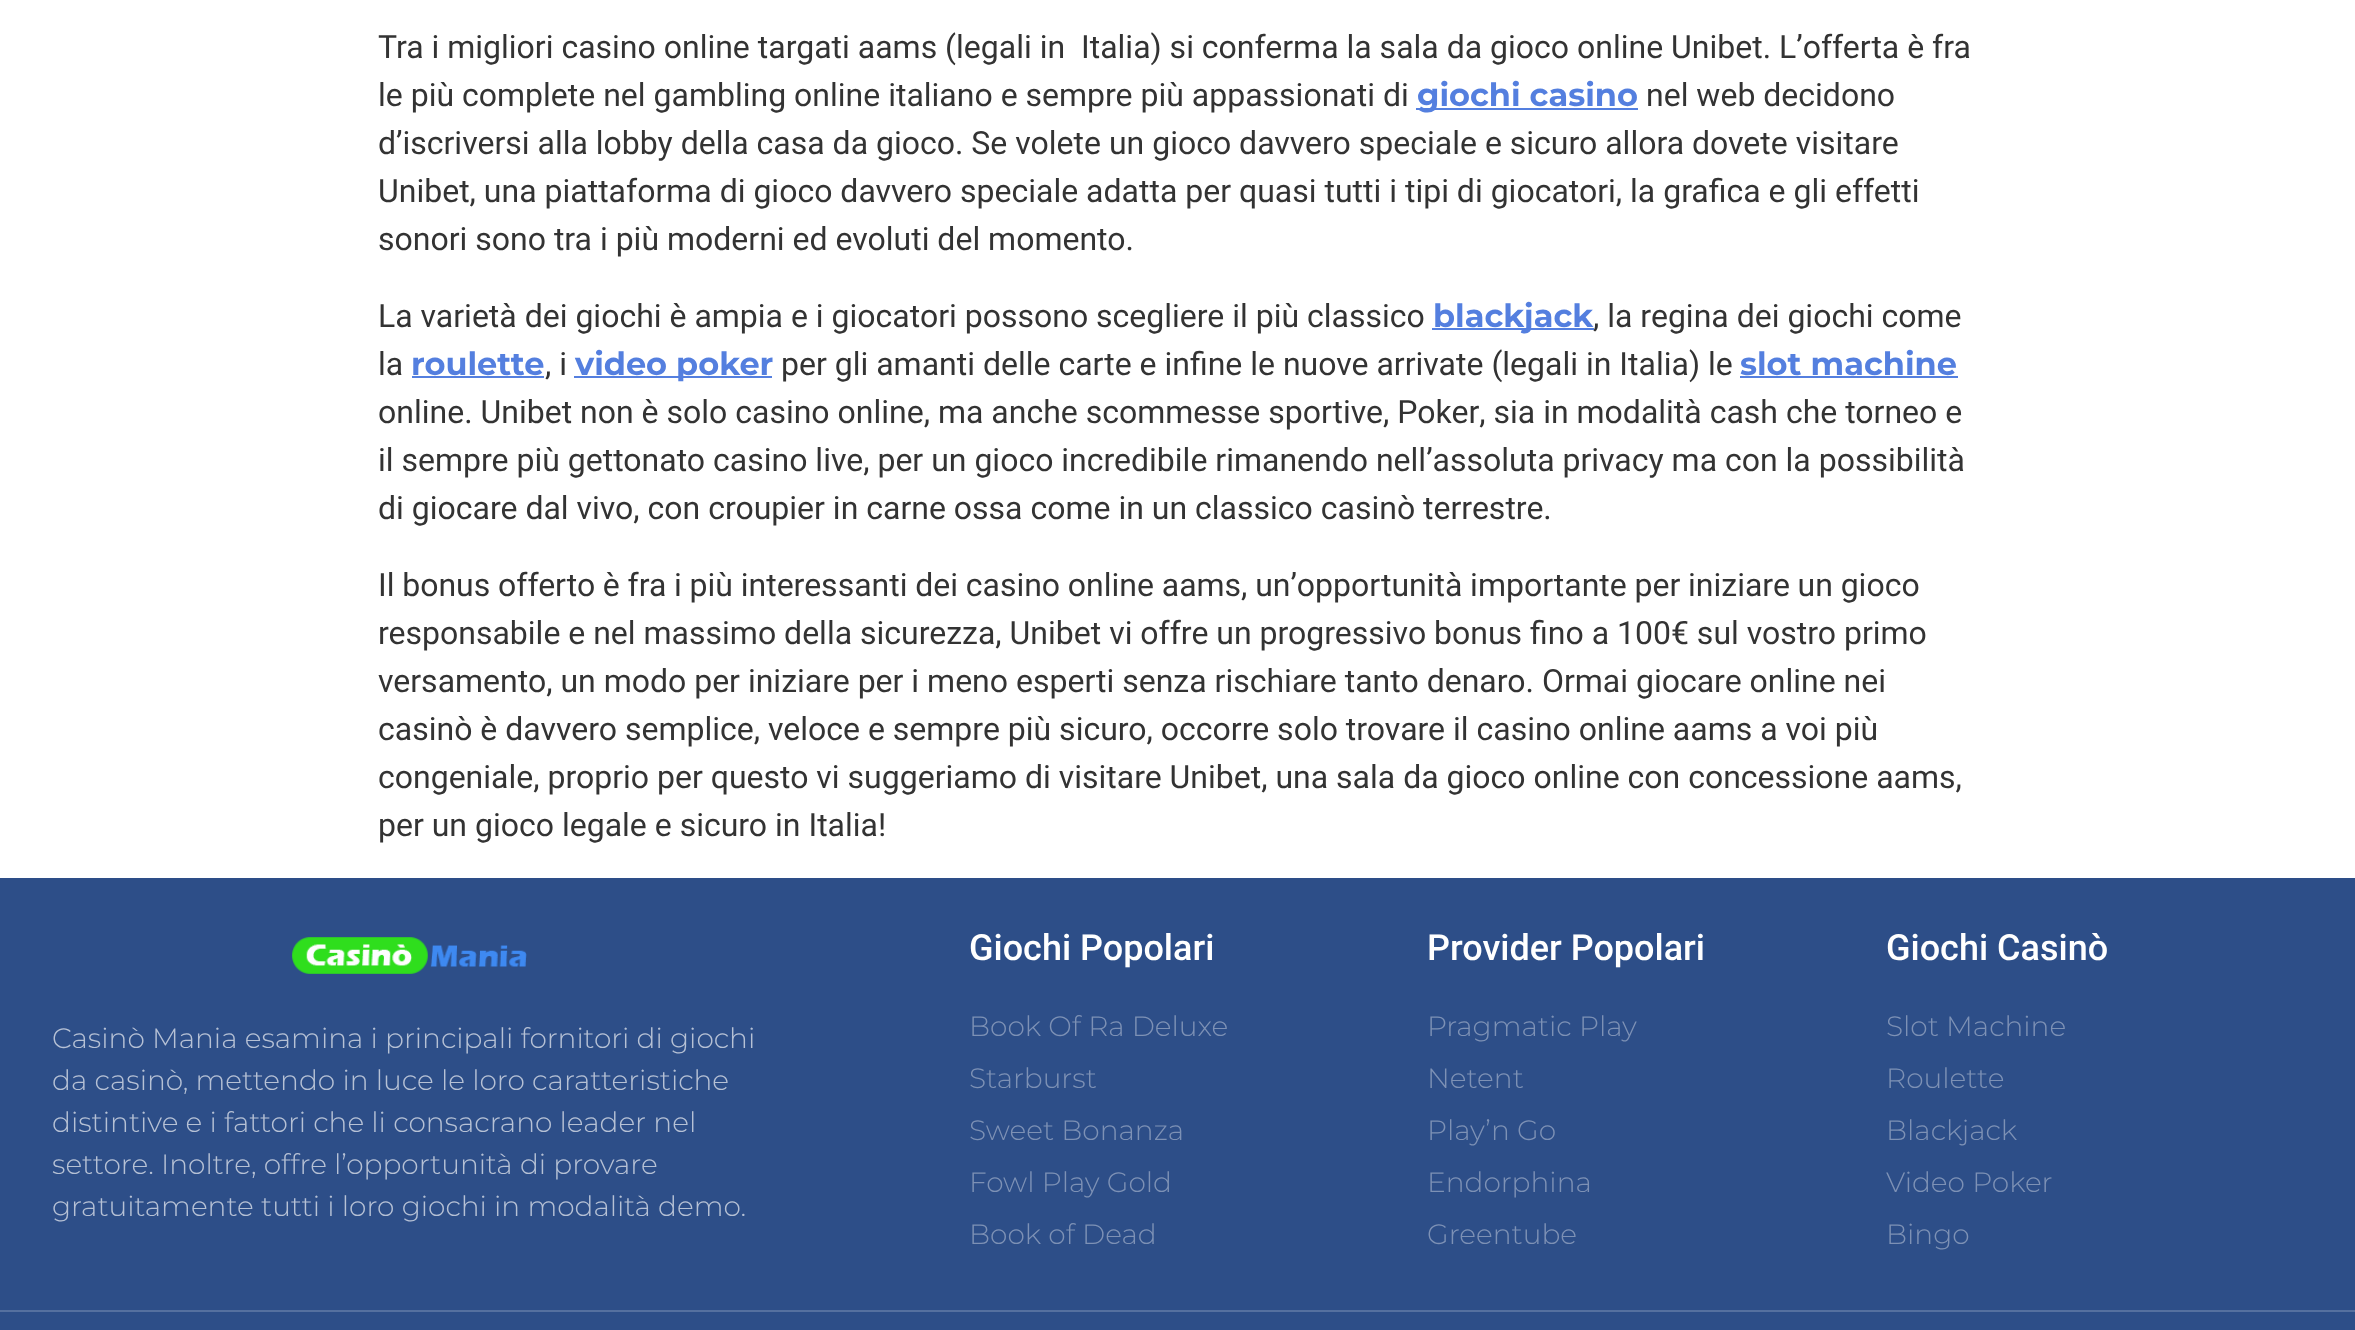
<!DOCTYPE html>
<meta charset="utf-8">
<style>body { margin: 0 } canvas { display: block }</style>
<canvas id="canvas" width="2355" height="1330"></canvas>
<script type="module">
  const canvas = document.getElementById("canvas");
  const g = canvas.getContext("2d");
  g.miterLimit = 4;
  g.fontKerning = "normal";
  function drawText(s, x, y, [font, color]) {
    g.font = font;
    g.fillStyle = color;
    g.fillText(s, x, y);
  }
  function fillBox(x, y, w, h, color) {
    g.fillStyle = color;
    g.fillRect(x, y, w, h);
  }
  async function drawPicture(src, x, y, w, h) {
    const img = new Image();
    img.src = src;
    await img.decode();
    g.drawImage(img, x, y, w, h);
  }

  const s1 = ["32px Roboto", "#333333"];
  const s2 = ["bold 32px Montserrat", "#547FDF"];
  const s3 = ["300 28px Montserrat", "#B6C1D5"];
  const s4 = ["500 36px Roboto", "#FFFFFF"];
  const s5 = ["300 28px Montserrat", "#7D91B5"];

  fillBox(0, 0, 2355, 1330, "#FFFFFF");
  drawText("Tra i migliori casino online targati aams (legali in  Italia) si conferma la sala da gioco online Unibet. L’offerta è fra", 378, 58, s1);
  drawText("le più complete nel gambling online italiano e sempre più appassionati di", 378, 106, s1);
  fillBox(1416, 108, 222, 2, "#547FDF");
  drawText("giochi casino", 1417, 106, s2);
  drawText("nel web decidono", 1646, 106, s1);
  drawText("d’iscriversi alla lobby della casa da gioco. Se volete un gioco davvero speciale e sicuro allora dovete visitare", 378, 154, s1);
  drawText("Unibet, una piattaforma di gioco davvero speciale adatta per quasi tutti i tipi di giocatori, la grafica e gli effetti", 378, 202, s1);
  drawText("sonori sono tra i più moderni ed evoluti del momento.", 378, 250, s1);
  drawText("La varietà dei giochi è ampia e i giocatori possono scegliere il più classico", 378, 327, s1);
  fillBox(1432, 328, 162, 2, "#547FDF");
  drawText("blackjack", 1433, 327, s2);
  drawText(", la regina dei giochi come", 1593, 327, s1);
  drawText("la", 378, 375, s1);
  drawText("roulette", 411, 375, s2);
  drawText(", i", 545, 375, s1);
  fillBox(412, 376, 132, 2, "#547FDF");
  fillBox(574, 376, 198, 2, "#547FDF");
  drawText("video poker", 575, 375, s2);
  drawText("per gli amanti delle carte e infine le nuove arrivate (legali in Italia) le", 781, 375, s1);
  drawText("slot machine", 1740, 375, s2);
  fillBox(1740, 376, 218, 2, "#547FDF");
  drawText("online. Unibet non è solo casino online, ma anche scommesse sportive, Poker, sia in modalità cash che torneo e", 378, 423, s1);
  drawText("il sempre più gettonato casino live, per un gioco incredibile rimanendo nell’assoluta privacy ma con la possibilità", 378, 471, s1);
  drawText("di giocare dal vivo, con croupier in carne ossa come in un classico casinò terrestre.", 378, 519, s1);
  g.wordSpacing = "-0.2px";
  drawText("Il bonus offerto è fra i più interessanti dei casino online aams, un’opportunità importante per iniziare un gioco", 378, 596, s1);
  g.wordSpacing = "0px";
  drawText("responsabile e nel massimo della sicurezza, Unibet vi offre un progressivo bonus fino a 100€ sul vostro primo", 378, 644, s1);
  drawText("versamento, un modo per iniziare per i meno esperti senza rischiare tanto denaro. Ormai giocare online nei", 378, 692, s1);
  drawText("casinò è davvero semplice, veloce e sempre più sicuro, occorre solo trovare il casino online aams a voi più", 378, 740, s1);
  drawText("congeniale, proprio per questo vi suggeriamo di visitare Unibet, una sala da gioco online con concessione aams,", 378, 788, s1);
  drawText("per un gioco legale e sicuro in Italia!", 378, 836, s1);
  fillBox(0, 878, 2355, 432, "#2D4E88");
  await drawPicture("pic1.png", 292, 937, 235, 37);
  drawText("Casinò Mania esamina i principali fornitori di giochi", 52, 1048, s3);
  drawText("da casinò, mettendo in luce le loro caratteristiche", 52, 1090, s3);
  drawText("distintive e i fattori che li consacrano leader nel", 52, 1132, s3);
  drawText("settore. Inoltre, offre l’opportunità di provare", 52, 1174, s3);
  drawText("gratuitamente tutti i loro giochi in modalità demo.", 52, 1216, s3);
  drawText("Giochi Popolari", 969, 960, s4);
  drawText("Book Of Ra Deluxe", 969, 1036, s5);
  drawText("Starburst", 969, 1088, s5);
  drawText("Sweet Bonanza", 969, 1140, s5);
  drawText("Fowl Play Gold", 969, 1192, s5);
  drawText("Book of Dead", 969, 1244, s5);
  drawText("Provider Popolari", 1427, 960, s4);
  drawText("Pragmatic Play", 1427, 1036, s5);
  drawText("Netent", 1427, 1088, s5);
  drawText("Play’n Go", 1427, 1140, s5);
  drawText("Endorphina", 1427, 1192, s5);
  drawText("Greentube", 1427, 1244, s5);
  drawText("Giochi Casinò", 1886, 960, s4);
  drawText("Slot Machine", 1886, 1036, s5);
  drawText("Roulette", 1886, 1088, s5);
  drawText("Blackjack", 1886, 1140, s5);
  drawText("Video Poker", 1886, 1192, s5);
  drawText("Bingo", 1886, 1244, s5);
  fillBox(0, 1312, 2355, 18, "#2D4E88");
  fillBox(0, 1310, 2355, 2, "#55709F");
</script>
